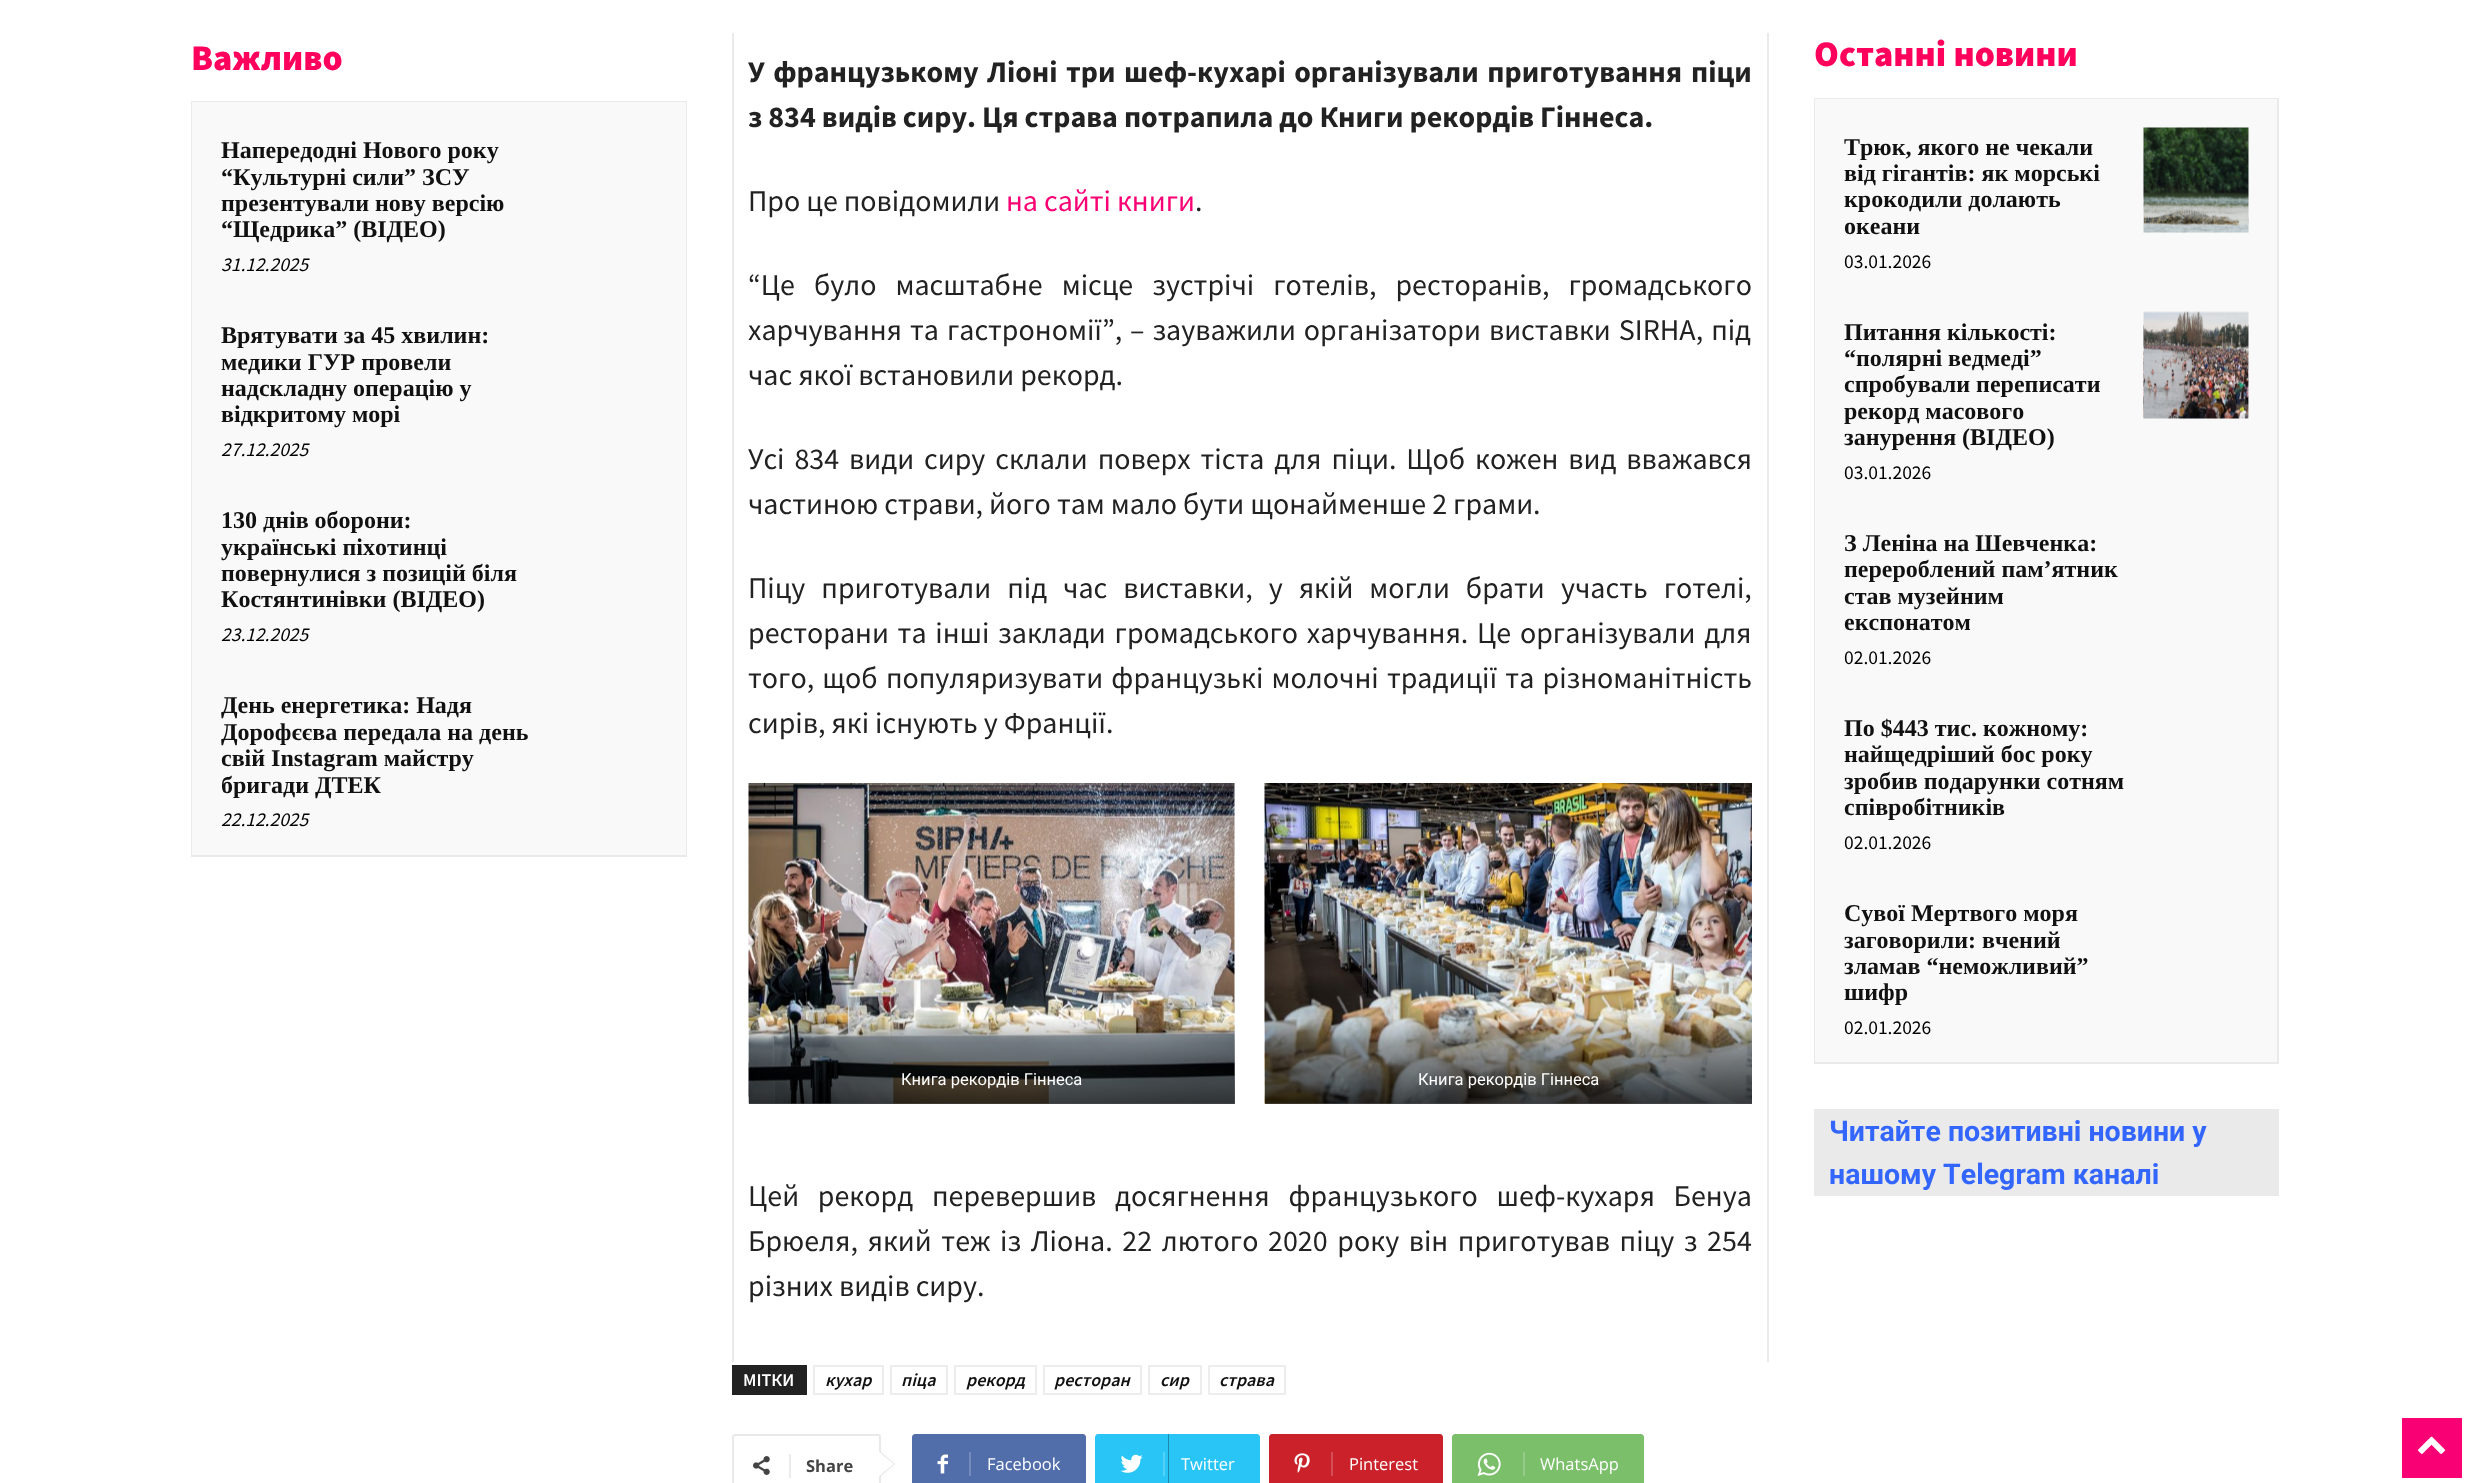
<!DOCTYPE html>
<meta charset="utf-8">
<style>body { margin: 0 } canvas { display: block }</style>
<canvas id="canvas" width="2468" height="1483"></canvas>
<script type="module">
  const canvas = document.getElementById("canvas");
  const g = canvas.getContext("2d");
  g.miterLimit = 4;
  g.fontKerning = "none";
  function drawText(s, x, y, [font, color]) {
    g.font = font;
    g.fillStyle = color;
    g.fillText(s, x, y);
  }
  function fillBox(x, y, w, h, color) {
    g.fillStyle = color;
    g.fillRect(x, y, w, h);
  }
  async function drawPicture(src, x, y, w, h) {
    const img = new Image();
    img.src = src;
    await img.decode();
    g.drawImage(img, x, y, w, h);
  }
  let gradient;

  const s1 = ["900 36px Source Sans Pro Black", "#FF005D"];
  const s2 = ["bold 24px Liberation Serif", "#111111"];
  const s3 = ["italic 19.5px Source Sans Pro", "#000000"];
  const s4 = ["bold 30px Source Sans Pro", "#222222"];
  const s5 = ["30px Source Sans Pro", "#222222"];
  const s6 = ["30px Source Sans Pro", "#F90074"];
  const s7 = ["16.5px Roboto", "#FFFFFF"];
  const s8 = ["600 18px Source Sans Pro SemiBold", "#FFFFFF"];
  const s9 = ["italic 600 18px Source Sans Pro SemiBold", "#111111"];
  const s10 = ["bold 16.5px Open Sans", "#444444"];
  const s11 = ["16.5px Open Sans", "#FFFFFF"];
  const s12 = ["19.5px Source Sans Pro", "#000000"];
  const s13 = ["bold 28.5px Roboto", "#3366FF"];

  fillBox(0, 0, 2468, 1483, "#FFFFFF");
  drawText("Важливо", 191, 70, s1);
  g.strokeStyle = "#EAEAEA";
  g.lineWidth = 2;
  g.strokeRect(192, 102, 494, 754);
  fillBox(192, 102, 494, 753, "#F9F9F9");
  drawText("Напередодні Нового року", 221, 158, s2);
  drawText("“Культурні сили” ЗСУ", 221, 185, s2);
  drawText("презентували нову версію", 221, 211, s2);
  drawText("“Щедрика” (ВІДЕО)", 221, 237, s2);
  drawText("31.12.2025", 221, 271, s3);
  drawText("Врятувати за 45 хвилин:", 221, 343, s2);
  drawText("медики ГУР провели", 221, 370, s2);
  drawText("надскладну операцію у", 221, 396, s2);
  drawText("відкритому морі", 221, 422, s2);
  drawText("27.12.2025", 221, 456, s3);
  drawText("130 днів оборони:", 221, 528, s2);
  drawText("українські піхотинці", 221, 555, s2);
  drawText("повернулися з позицій біля", 221, 581, s2);
  drawText("Костянтинівки (ВІДЕО)", 221, 607, s2);
  drawText("23.12.2025", 221, 641, s3);
  drawText("День енергетика: Надя", 221, 713, s2);
  drawText("Дорофєєва передала на день", 221, 740, s2);
  drawText("свій Instagram майстру", 221, 766, s2);
  drawText("бригади ДТЕК", 221, 793, s2);
  drawText("22.12.2025", 221, 826, s3);
  fillBox(1767, 33, 2, 1329, "#EAEAEA");
  fillBox(732, 33, 2, 1329, "#EAEAEA");
  g.wordSpacing = "2.5px";
  drawText("У французькому Ліоні три шеф-кухарі організували приготування", 748, 82, s4);
  drawText("піци", 1691, 82, s4);
  g.wordSpacing = "0px";
  drawText("з 834 видів сиру. Ця страва потрапила до Книги рекордів Гіннеса.", 748, 127, s4);
  drawText("Про це повідомили", 748, 211, s5);
  drawText("на сайті книги", 1006, 211, s6);
  drawText(".", 1195, 211, s5);
  g.wordSpacing = "13px";
  drawText("“Це було масштабне місце зустрічі готелів, ресторанів, громадського", 748, 295, s5);
  g.wordSpacing = "2px";
  drawText("харчування та гастрономії”,", 748, 340, s5);
  drawText("– зауважили організатори виставки SIRHA, під", 1130, 340, s5);
  g.wordSpacing = "0px";
  drawText("час якої встановили рекорд.", 748, 385, s5);
  g.wordSpacing = "3.9px";
  drawText("Усі 834 види сиру склали поверх тіста для піци. Щоб кожен вид вважався", 748, 469, s5);
  g.wordSpacing = "0px";
  drawText("частиною страви, його там мало бути щонайменше 2 грами.", 748, 514, s5);
  g.wordSpacing = "10px";
  drawText("Піцу приготували під час виставки, у якій могли брати", 748, 598, s5);
  drawText("участь готелі,", 1561, 598, s5);
  g.wordSpacing = "2.75px";
  drawText("ресторани та інші заклади громадського харчування. Це організували для", 748, 643, s5);
  g.wordSpacing = "2.25px";
  drawText("того, щоб популяризувати французькі молочні традиції та різноманітність", 748, 688, s5);
  g.wordSpacing = "0px";
  drawText("сирів, які існують у Франції.", 748, 733, s5);
  await drawPicture("pic1.png", 748, 783, 487, 321);
  gradient = g.createLinearGradient(992, 1104, 992, 1017);
  gradient.addColorStop(0, "rgba(0, 0, 0, 0.7)");
  gradient.addColorStop(0.7, "rgba(0, 0, 0, 0.3)");
  gradient.addColorStop(1, "rgba(0, 0, 0, 0)");
  g.fillStyle = gradient;
  g.fillRect(749, 1019, 486, 85);
  drawText("Книга рекордів Гіннеса", 901, 1085, s7);
  await drawPicture("pic2.png", 1264, 783, 488, 321);
  gradient = g.createLinearGradient(1508, 1104, 1508, 1017);
  gradient.addColorStop(0, "rgba(0, 0, 0, 0.7)");
  gradient.addColorStop(0.7, "rgba(0, 0, 0, 0.3)");
  gradient.addColorStop(1, "rgba(0, 0, 0, 0)");
  g.fillStyle = gradient;
  g.fillRect(1265, 1019, 487, 85);
  drawText("Книга рекордів Гіннеса", 1418, 1085, s7);
  g.wordSpacing = "12.75px";
  drawText("Цей рекорд перевершив досягнення французького шеф-кухаря Бенуа", 748, 1206, s5);
  g.wordSpacing = "3.6px";
  drawText("Брюеля, який теж із Ліона. 22 лютого 2020 року він приготував піцу з 254", 748, 1251, s5);
  g.wordSpacing = "0px";
  drawText("різних видів сиру.", 748, 1296, s5);
  fillBox(732, 1365, 75, 30, "#222222");
  drawText("МІТКИ", 743, 1386, s8);
  g.strokeStyle = "#EDEDED";
  g.strokeRect(814, 1366, 69, 28);
  drawText("кухар", 825, 1386, s9);
  g.strokeRect(891, 1366, 56, 28);
  drawText("піца", 901, 1386, s9);
  g.strokeRect(955, 1366, 81, 28);
  drawText("рекорд", 966, 1386, s9);
  g.strokeRect(1044, 1366, 97, 28);
  drawText("ресторан", 1054, 1386, s9);
  g.strokeRect(1149, 1366, 52, 28);
  drawText("сир", 1160, 1386, s9);
  g.strokeRect(1209, 1366, 76, 28);
  drawText("страва", 1219, 1386, s9);
  g.beginPath();
  g.roundRect(733, 1435, 147, 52, 2);
  g.strokeStyle = "#E9E9E9";
  g.stroke();
  g.fillStyle = "#E9E9E9";
  g.beginPath();
  g.moveTo(879, 1477.5);
  g.lineTo(879, 1450.5);
  g.lineTo(895.5, 1464);
  g.closePath();
  g.fill();
  await drawPicture("pic3.png", 753, 1456, 17, 19);
  fillBox(789, 1454, 2, 24, "#EBEBEB");
  drawText("Share", 806, 1472, s10);
  g.fillStyle = "#FFFFFF";
  g.beginPath();
  g.moveTo(879, 1476);
  g.lineTo(879, 1452);
  g.lineTo(894, 1464);
  g.closePath();
  g.fill();
  g.fillStyle = "#516EAB";
  g.beginPath();
  g.moveTo(969, 1434);
  g.lineTo(1083, 1434);
  g.bezierCurveTo(1084.5, 1434, 1086, 1435.5, 1086, 1437);
  g.lineTo(1086, 1483);
  g.bezierCurveTo(1086, 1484.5, 1084.5, 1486, 1083, 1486);
  g.lineTo(969, 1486);
  g.closePath();
  g.fill();
  g.beginPath();
  g.moveTo(915, 1434);
  g.lineTo(974, 1434);
  g.lineTo(974, 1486);
  g.lineTo(915, 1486);
  g.bezierCurveTo(913.5, 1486, 912, 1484.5, 912, 1483);
  g.lineTo(912, 1437);
  g.bezierCurveTo(912, 1435.5, 913.5, 1434, 915, 1434);
  g.closePath();
  g.fill();
  await drawPicture("pic4.png", 937, 1454, 11, 20);
  fillBox(969, 1452, 2, 24, "#748BBC");
  drawText("Facebook", 987, 1470, s11);
  g.fillStyle = "#29C5F6";
  g.beginPath();
  g.moveTo(1163, 1434);
  g.lineTo(1257, 1434);
  g.bezierCurveTo(1258.5, 1434, 1260, 1435.5, 1260, 1437);
  g.lineTo(1260, 1483);
  g.bezierCurveTo(1260, 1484.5, 1258.5, 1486, 1257, 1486);
  g.lineTo(1163, 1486);
  g.closePath();
  g.fill();
  g.beginPath();
  g.moveTo(1098, 1434);
  g.lineTo(1169, 1434);
  g.lineTo(1169, 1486);
  g.lineTo(1098, 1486);
  g.bezierCurveTo(1096.5, 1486, 1095, 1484.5, 1095, 1483);
  g.lineTo(1095, 1437);
  g.bezierCurveTo(1095, 1435.5, 1096.5, 1434, 1098, 1434);
  g.closePath();
  g.fill();
  g.fillStyle = "#1C88AA";
  g.beginPath();
  g.moveTo(1095, 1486);
  g.lineTo(1095, 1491);
  g.bezierCurveTo(1095, 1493, 1096, 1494, 1098, 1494);
  g.lineTo(1169, 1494);
  g.lineTo(1169, 1434);
  g.lineTo(1168, 1434);
  g.lineTo(1168, 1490);
  g.lineTo(1098, 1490);
  g.bezierCurveTo(1096, 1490, 1095, 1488, 1095, 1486);
  g.closePath();
  g.fill();
  await drawPicture("pic5.png", 1120, 1454, 23, 19);
  fillBox(1163, 1452, 2, 24, "#54D1F8");
  drawText("Twitter", 1181, 1470, s11);
  g.fillStyle = "#CA212A";
  g.beginPath();
  g.moveTo(1331, 1434);
  g.lineTo(1440, 1434);
  g.bezierCurveTo(1441.5, 1434, 1443, 1435.5, 1443, 1437);
  g.lineTo(1443, 1483);
  g.bezierCurveTo(1443, 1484.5, 1441.5, 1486, 1440, 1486);
  g.lineTo(1331, 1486);
  g.closePath();
  g.fill();
  g.beginPath();
  g.moveTo(1272, 1434);
  g.lineTo(1335, 1434);
  g.lineTo(1335, 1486);
  g.lineTo(1272, 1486);
  g.bezierCurveTo(1270.5, 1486, 1269, 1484.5, 1269, 1483);
  g.lineTo(1269, 1437);
  g.bezierCurveTo(1269, 1435.5, 1270.5, 1434, 1272, 1434);
  g.closePath();
  g.fill();
  await drawPicture("pic6.png", 1294, 1453, 16, 20);
  fillBox(1331, 1452, 2, 24, "#D54D55");
  drawText("Pinterest", 1349, 1470, s11);
  g.fillStyle = "#7BBF6A";
  g.beginPath();
  g.moveTo(1523, 1434);
  g.lineTo(1641, 1434);
  g.bezierCurveTo(1642.5, 1434, 1644, 1435.5, 1644, 1437);
  g.lineTo(1644, 1483);
  g.bezierCurveTo(1644, 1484.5, 1642.5, 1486, 1641, 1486);
  g.lineTo(1523, 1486);
  g.closePath();
  g.fill();
  g.beginPath();
  g.moveTo(1455, 1434);
  g.lineTo(1527, 1434);
  g.lineTo(1527, 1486);
  g.lineTo(1455, 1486);
  g.bezierCurveTo(1453.5, 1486, 1452, 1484.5, 1452, 1483);
  g.lineTo(1452, 1437);
  g.bezierCurveTo(1452, 1435.5, 1453.5, 1434, 1455, 1434);
  g.closePath();
  g.fill();
  await drawPicture("pic7.png", 1477, 1452, 24, 24);
  fillBox(1523, 1452, 2, 24, "#95CC88");
  drawText("WhatsApp", 1540, 1470, s11);
  drawText("Останні новини", 1814, 66, s1);
  g.strokeStyle = "#EAEAEA";
  g.strokeRect(1815, 99, 463, 964);
  fillBox(1815, 99, 462, 963, "#F9F9F9");
  drawText("Трюк, якого не чекали", 1844, 155, s2);
  drawText("від гігантів: як морські", 1844, 181, s2);
  drawText("крокодили долають", 1844, 207, s2);
  drawText("океани", 1844, 234, s2);
  drawText("03.01.2026", 1844, 268, s12);
  await drawPicture("pic8.png", 2143, 127, 106, 106);
  drawText("Питання кількості:", 1844, 340, s2);
  drawText("“полярні ведмеді”", 1844, 366, s2);
  drawText("спробували переписати", 1844, 392, s2);
  drawText("рекорд масового", 1844, 419, s2);
  drawText("занурення (ВІДЕО)", 1844, 445, s2);
  drawText("03.01.2026", 1844, 479, s12);
  await drawPicture("pic9.png", 2143, 311, 106, 108);
  drawText("З Леніна на Шевченка:", 1844, 551, s2);
  drawText("перероблений памʼятник", 1844, 577, s2);
  drawText("став музейним", 1844, 604, s2);
  drawText("експонатом", 1844, 630, s2);
  drawText("02.01.2026", 1844, 664, s12);
  drawText("По $443 тис. кожному:", 1844, 736, s2);
  drawText("найщедріший бос року", 1844, 762, s2);
  drawText("зробив подарунки сотням", 1844, 789, s2);
  drawText("співробітників", 1844, 815, s2);
  drawText("02.01.2026", 1844, 849, s12);
  drawText("Сувої Мертвого моря", 1844, 921, s2);
  drawText("заговорили: вчений", 1844, 948, s2);
  drawText("зламав “неможливий”", 1844, 974, s2);
  drawText("шифр", 1844, 1000, s2);
  drawText("02.01.2026", 1844, 1034, s12);
  fillBox(1814, 1109, 465, 87, "#EAEAEA");
  drawText("Читайте позитивні новини у", 1829, 1141, s13);
  drawText("нашому Telegram каналі", 1829, 1184, s13);
  fillBox(2402, 1418, 60, 60, "#F90074");
  await drawPicture("pic10.png", 2418, 1436, 27, 18);
</script>
